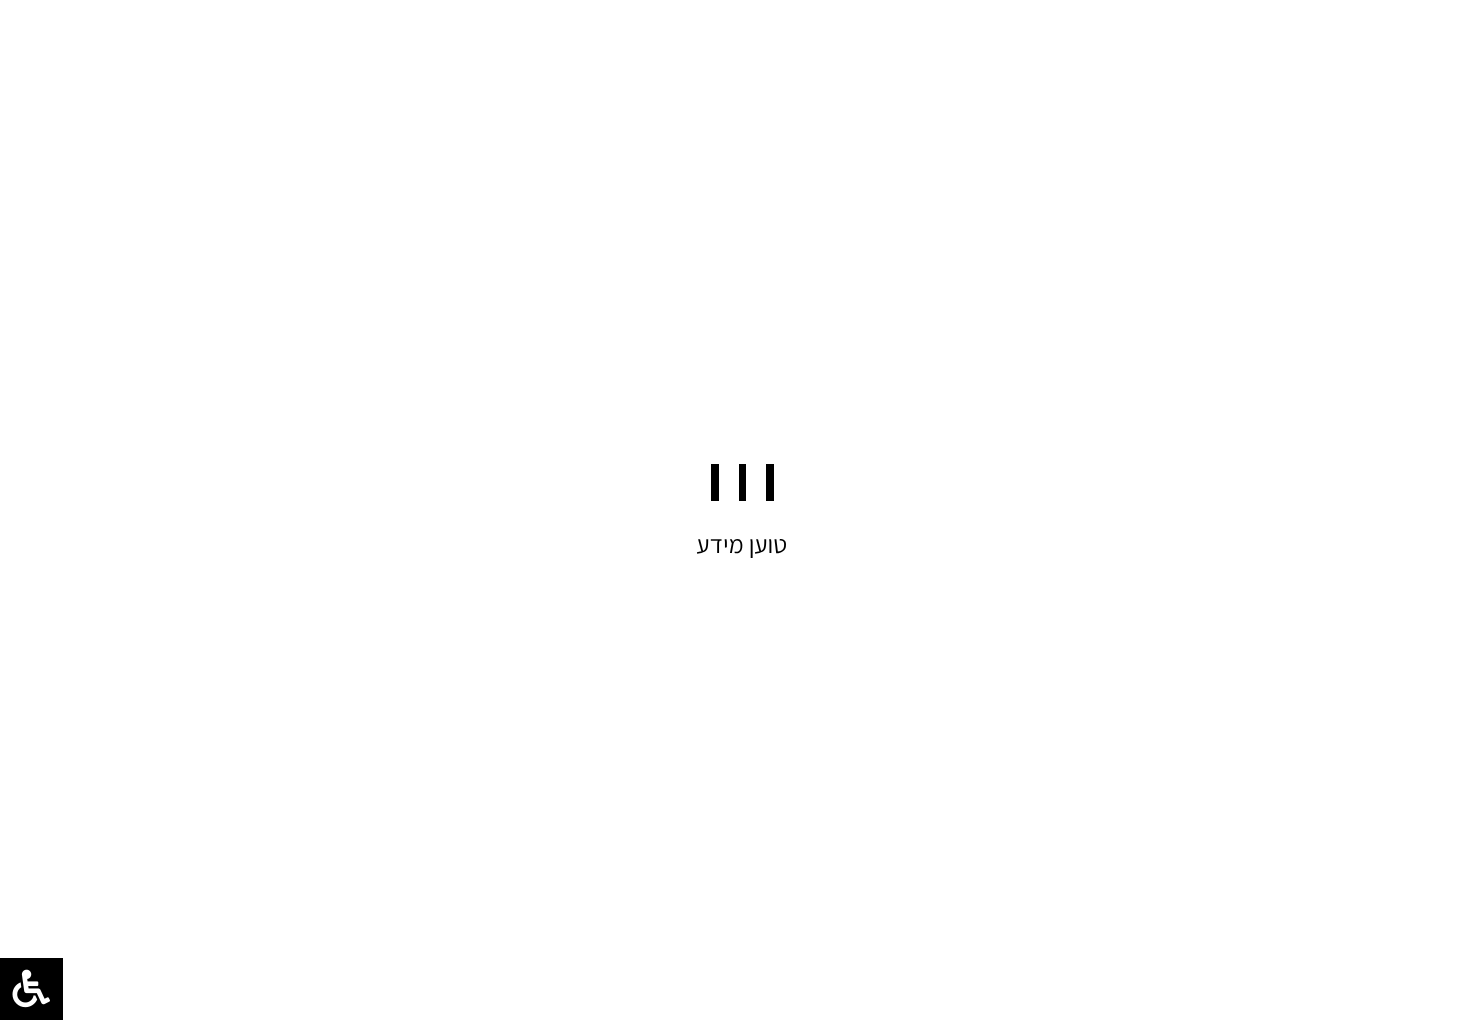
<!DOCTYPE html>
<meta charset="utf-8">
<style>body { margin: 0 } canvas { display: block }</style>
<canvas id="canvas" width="1483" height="1020"></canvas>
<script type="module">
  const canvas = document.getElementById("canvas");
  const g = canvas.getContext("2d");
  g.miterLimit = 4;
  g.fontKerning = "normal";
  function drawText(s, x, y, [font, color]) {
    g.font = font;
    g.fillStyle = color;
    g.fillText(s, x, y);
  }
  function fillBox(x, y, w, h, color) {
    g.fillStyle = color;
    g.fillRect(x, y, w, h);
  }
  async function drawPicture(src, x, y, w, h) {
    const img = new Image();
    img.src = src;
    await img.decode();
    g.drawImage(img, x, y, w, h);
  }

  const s1 = ["25px Assistant", "#000000"];

  fillBox(0, 0, 1483, 1020, "#FFFFFF");
  fillBox(766, 464, 8, 37, "#000000");
  fillBox(739, 464, 7, 37, "#000000");
  fillBox(711, 464, 8, 37, "#000000");
  g.direction = "rtl";
  drawText("טוען מידע", 787, 553, s1);
  fillBox(0, 958, 63, 62, "#000000");
  await drawPicture("pic1.png", 12, 969, 38, 39);
</script>
